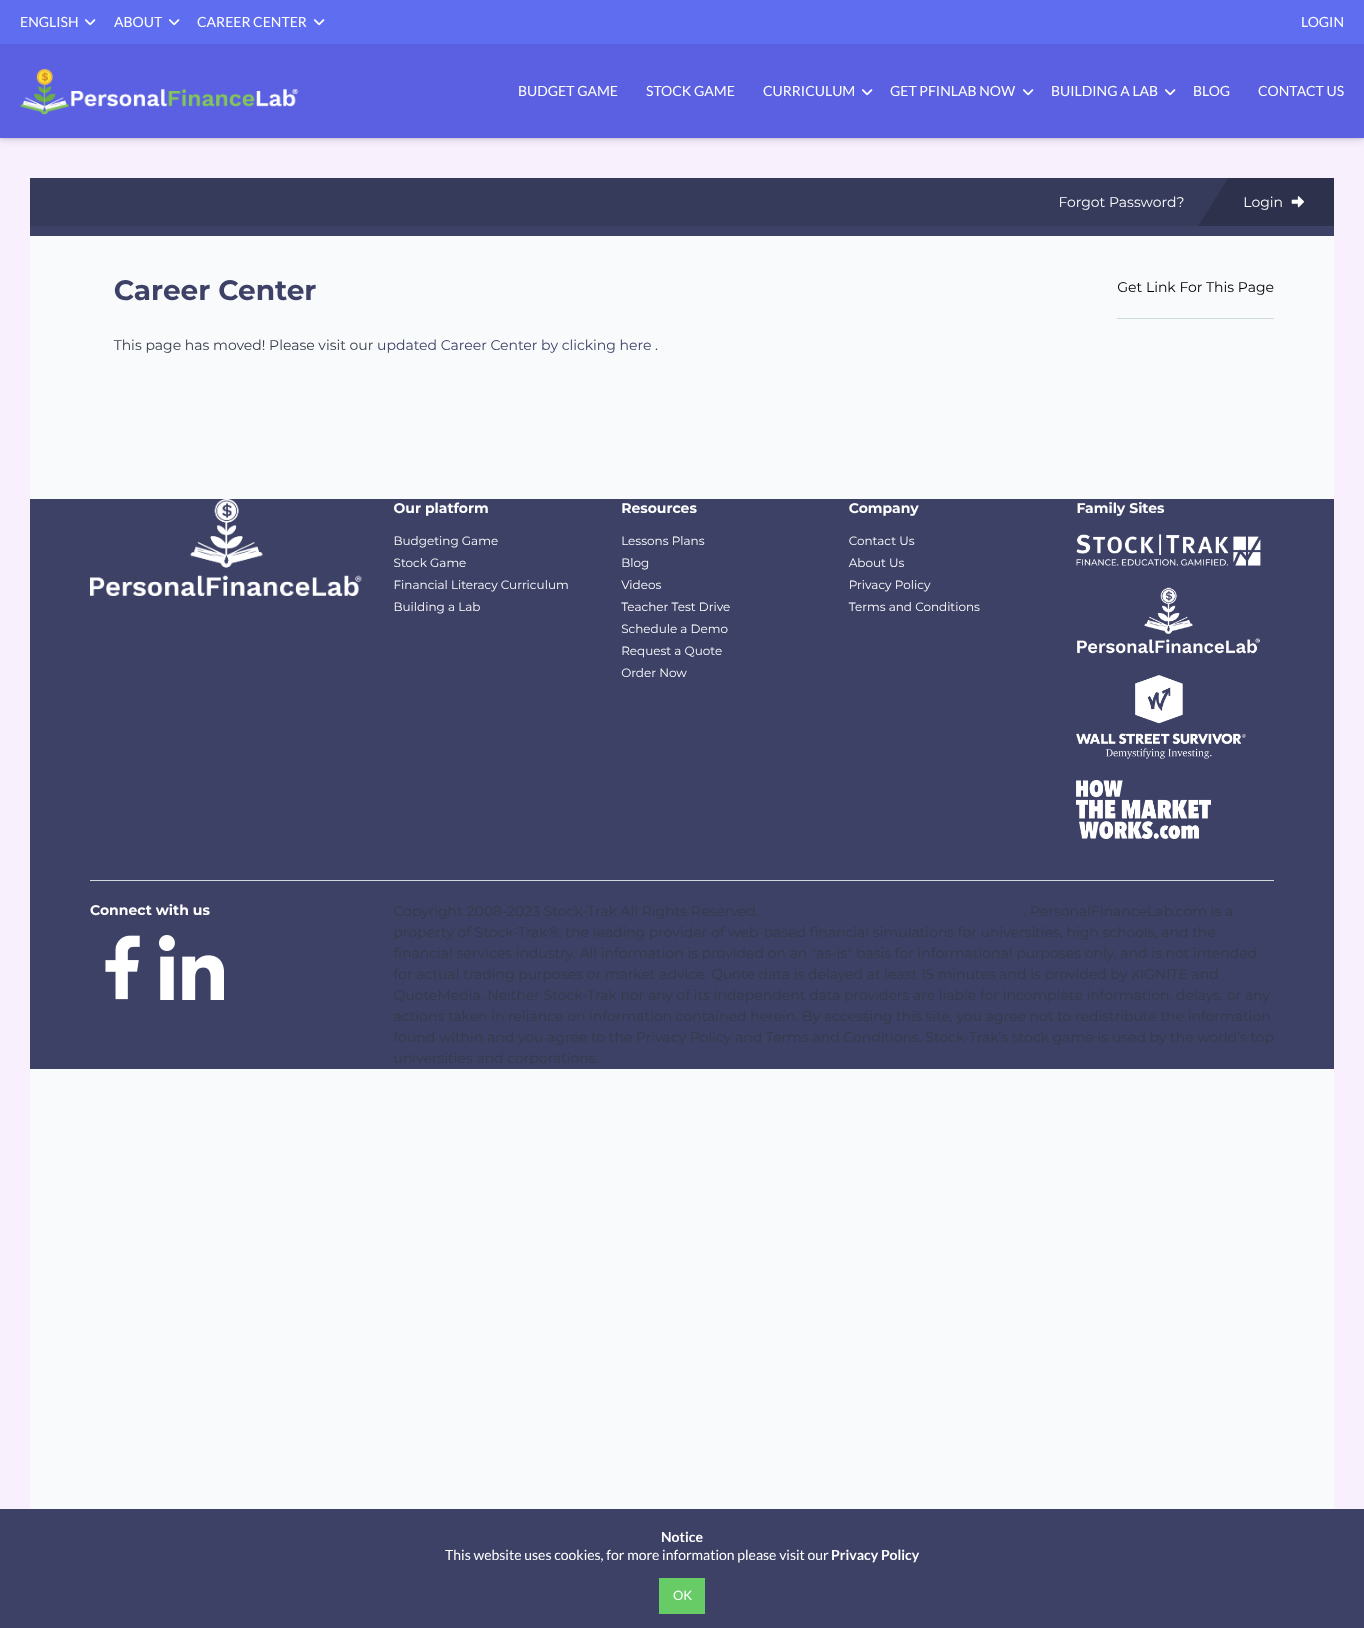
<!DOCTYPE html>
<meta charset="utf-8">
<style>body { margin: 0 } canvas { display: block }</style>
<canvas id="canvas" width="1364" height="1628"></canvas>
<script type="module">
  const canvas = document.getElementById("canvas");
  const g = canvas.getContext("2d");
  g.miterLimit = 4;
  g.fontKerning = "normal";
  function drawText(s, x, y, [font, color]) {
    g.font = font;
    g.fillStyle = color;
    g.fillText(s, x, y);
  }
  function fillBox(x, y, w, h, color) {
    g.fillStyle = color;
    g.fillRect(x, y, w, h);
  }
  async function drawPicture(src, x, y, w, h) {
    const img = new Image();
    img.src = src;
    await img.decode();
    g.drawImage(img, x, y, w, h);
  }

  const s1 = ["14px Lato", "#FFFFFF"];
  const s2 = ["bold 14px Lato", "#FFFFFF"];
  const s3 = ["13px Lato", "#FFFFFF"];

  fillBox(0, 0, 1364, 1628, "#F8F0FD");
  g.fillStyle = "rgba(0, 0, 0, 0.1)";
  g.filter = "blur(1px)";
  g.beginPath();
  g.rect(0, 46, 1364, 93);
  g.fill();
  g.filter = "none";
  g.fillStyle = "rgba(49, 49, 93, 0.2)";
  g.filter = "blur(4px)";
  g.beginPath();
  g.rect(0, 46, 1364, 93);
  g.fill();
  g.filter = "none";
  fillBox(0, 0, 1364, 44, "#5F6DF1");
  drawText("ENGLISH", 20, 27, s1);
  await drawPicture("pic1.png", 85, 19, 11, 7);
  drawText("ABOUT", 114, 27, s1);
  await drawPicture("pic1.png", 169, 19, 11, 7);
  drawText("CAREER CENTER", 197, 27, s1);
  await drawPicture("pic1.png", 314, 19, 11, 7);
  drawText("LOGIN", 1301, 27, s1);
  fillBox(0, 44, 1364, 94, "#5A60E1");
  await drawPicture("pic2.png", 20, 69, 279, 46);
  drawText("BUDGET GAME", 518, 96, s1);
  drawText("STOCK GAME", 646, 96, s1);
  drawText("CURRICULUM", 763, 96, s1);
  await drawPicture("pic3.png", 862, 89, 11, 7);
  drawText("GET PFINLAB NOW", 890, 96, s1);
  await drawPicture("pic3.png", 1023, 89, 11, 7);
  drawText("BUILDING A LAB", 1051, 96, s1);
  await drawPicture("pic3.png", 1165, 89, 11, 7);
  drawText("BLOG", 1193, 96, s1);
  drawText("CONTACT US", 1258, 96, s1);
  await drawPicture("pic4.png", 30, 178, 1304, 1331);
  fillBox(0, 1509, 1364, 119, "#3D4166");
  drawText("Notice", 661, 1542, s2);
  drawText("This website uses cookies, for more information please visit our", 445, 1560, s1);
  drawText("Privacy Policy", 831, 1560, s2);
  fillBox(659, 1578, 46, 36, "#67CC66");
  drawText("OK", 673, 1600, s3);
</script>
